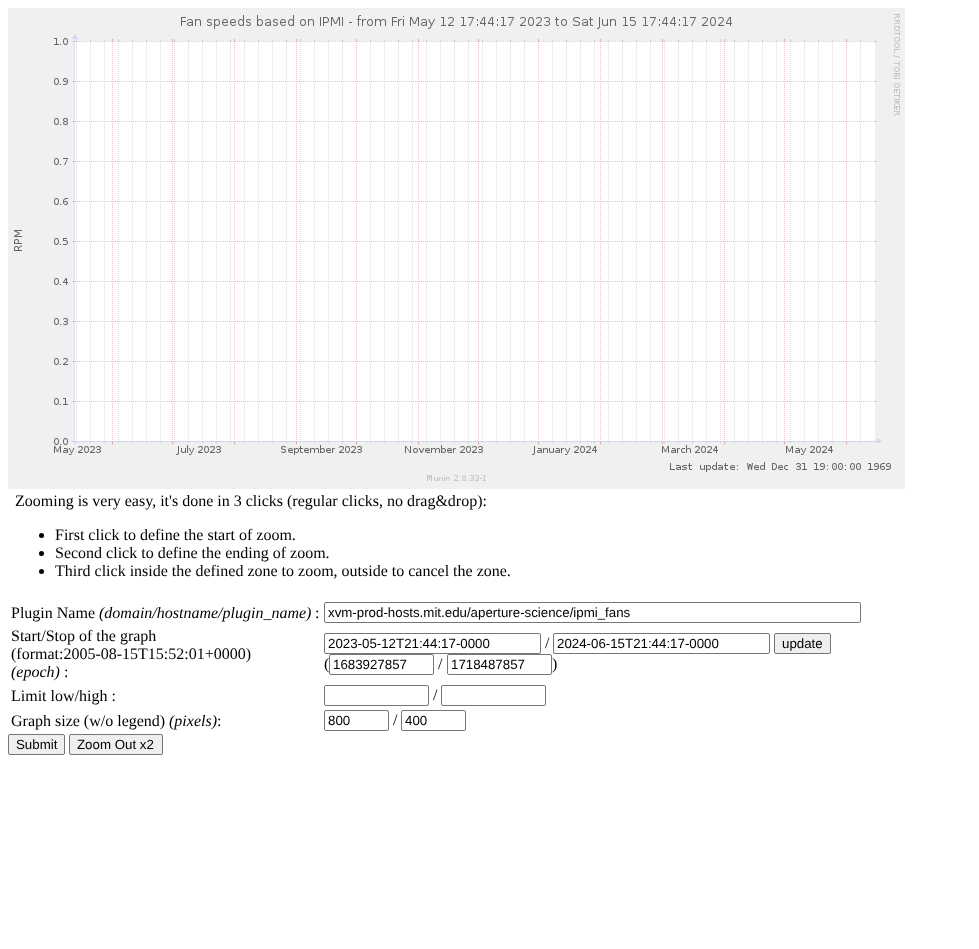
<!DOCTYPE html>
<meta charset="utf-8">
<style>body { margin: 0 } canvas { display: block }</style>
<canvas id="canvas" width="979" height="949"></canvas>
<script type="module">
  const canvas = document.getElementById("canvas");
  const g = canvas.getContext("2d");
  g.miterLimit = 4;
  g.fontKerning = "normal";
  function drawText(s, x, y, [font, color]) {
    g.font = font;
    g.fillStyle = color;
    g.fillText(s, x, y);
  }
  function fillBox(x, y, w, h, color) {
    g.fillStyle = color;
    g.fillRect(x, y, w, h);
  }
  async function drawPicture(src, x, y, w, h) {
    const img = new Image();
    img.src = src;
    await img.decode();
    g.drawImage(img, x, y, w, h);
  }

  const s1 = ["16px Liberation Serif", "#000000"];
  const s2 = ["italic 16px Liberation Serif", "#000000"];
  const s3 = ["13.3px Liberation Sans", "#000000"];

  fillBox(0, 0, 979, 949, "#FFFFFF");
  await drawPicture("pic1.png", 8, 8, 897, 481);
  drawText("Zooming is very easy, it's done in 3 clicks (regular clicks, no drag&drop):", 15, 506, s1);
  g.beginPath();
  g.arc(41.5, 535.5, 2.5, 0, Math.PI * 2);
  g.fill();
  drawText("First click to define the start of zoom.", 55, 540, s1);
  g.beginPath();
  g.arc(41.5, 553.5, 2.5, 0, Math.PI * 2);
  g.fill();
  drawText("Second click to define the ending of zoom.", 55, 558, s1);
  g.beginPath();
  g.arc(41.5, 571.5, 2.5, 0, Math.PI * 2);
  g.fill();
  drawText("Third click inside the defined zone to zoom, outside to cancel the zone.", 55, 576, s1);
  drawText("Plugin Name", 11, 618, s1);
  drawText("(domain/hostname/plugin_name)", 99, 618, s2);
  drawText(":", 315, 618, s1);
  g.beginPath();
  g.roundRect(324.5, 602.5, 536, 20, 1.5);
  g.strokeStyle = "#767676";
  g.stroke();
  drawText("xvm-prod-hosts.mit.edu/aperture-science/ipmi_fans", 328, 617, s3);
  drawText("Start/Stop of the graph", 11, 641, s1);
  drawText("(format:2005-08-15T15:52:01+0000)", 11, 659, s1);
  drawText("(epoch)", 11, 677, s2);
  drawText(":", 64, 677, s1);
  g.beginPath();
  g.roundRect(324.5, 633.5, 216, 20, 1.5);
  g.stroke();
  drawText("2023-05-12T21:44:17-0000", 328, 648, s3);
  drawText("/", 545, 648, s1);
  g.beginPath();
  g.roundRect(553.5, 633.5, 216, 20, 1.5);
  g.stroke();
  drawText("2024-06-15T21:44:17-0000", 557, 648, s3);
  g.fillStyle = "#EFEFEF";
  g.beginPath();
  g.roundRect(774.5, 633.5, 56, 20, 1.5);
  g.fill();
  g.stroke();
  drawText("update", 782, 648, s3);
  drawText("(", 324, 669, s1);
  g.beginPath();
  g.roundRect(329.5, 654.5, 104, 20, 1.5);
  g.stroke();
  drawText("1683927857", 333, 669, s3);
  drawText("/", 438, 669, s1);
  g.beginPath();
  g.roundRect(447.5, 654.5, 104, 20, 1.5);
  g.stroke();
  drawText("1718487857", 451, 669, s3);
  drawText(")", 552, 669, s1);
  drawText("Limit low/high :", 11, 701, s1);
  g.beginPath();
  g.roundRect(324.5, 685.5, 104, 20, 1.5);
  g.stroke();
  drawText("/", 433, 700, s1);
  g.beginPath();
  g.roundRect(441.5, 685.5, 104, 20, 1.5);
  g.stroke();
  drawText("Graph size (w/o legend)", 11, 726, s1);
  drawText("(pixels)", 169, 726, s2);
  drawText(":", 217, 726, s1);
  g.beginPath();
  g.roundRect(324.5, 710.5, 64, 20, 1.5);
  g.stroke();
  drawText("800", 328, 725, s3);
  drawText("/", 393, 725, s1);
  g.beginPath();
  g.roundRect(401.5, 710.5, 64, 20, 1.5);
  g.stroke();
  drawText("400", 405, 725, s3);
  g.fillStyle = "#EFEFEF";
  g.beginPath();
  g.roundRect(8.5, 734.5, 56, 20, 1.5);
  g.fill();
  g.stroke();
  drawText("Submit", 16, 749, s3);
  g.fillStyle = "#EFEFEF";
  g.beginPath();
  g.roundRect(69.5, 734.5, 93, 20, 1.5);
  g.fill();
  g.stroke();
  drawText("Zoom Out x2", 77, 749, s3);
</script>
